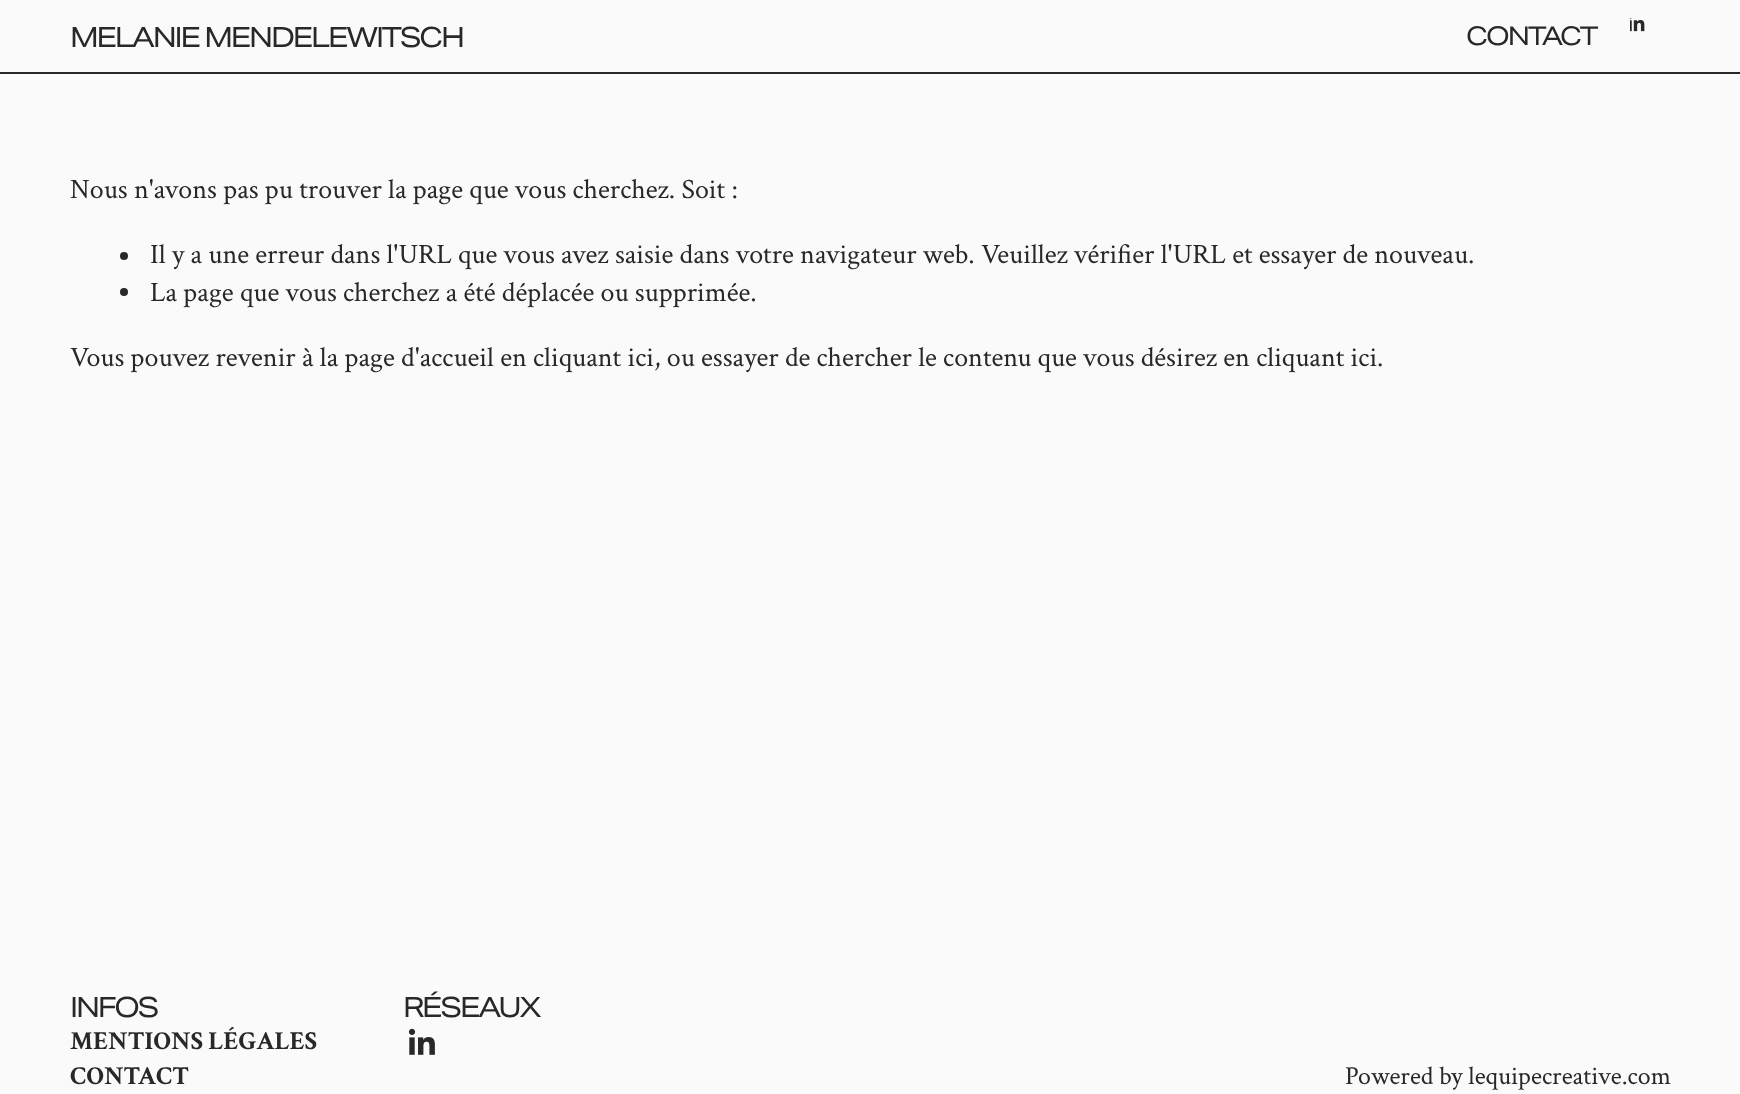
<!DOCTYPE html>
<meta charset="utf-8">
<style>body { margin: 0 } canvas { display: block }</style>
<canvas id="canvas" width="1740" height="1094"></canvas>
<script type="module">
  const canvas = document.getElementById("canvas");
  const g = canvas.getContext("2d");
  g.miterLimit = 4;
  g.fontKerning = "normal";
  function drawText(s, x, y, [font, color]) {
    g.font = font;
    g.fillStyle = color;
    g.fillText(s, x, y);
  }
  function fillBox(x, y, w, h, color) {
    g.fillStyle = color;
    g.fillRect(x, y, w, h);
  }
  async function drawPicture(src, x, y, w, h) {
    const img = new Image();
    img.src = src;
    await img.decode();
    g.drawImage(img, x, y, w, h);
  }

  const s1 = ["28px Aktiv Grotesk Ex", "#28282A"];
  const s2 = ["25.9px Aktiv Grotesk Ex", "#28282A"];
  const s3 = ["28px Crimson Text", "#28282A"];
  const s4 = ["bold 25.9px Crimson Text", "#28282A"];
  const s5 = ["25.9px Crimson Text", "#28282A"];

  fillBox(0, 0, 1740, 1094, "#FAFAFA");
  g.letterSpacing = "-2.25px";
  drawText("MELANIE MENDELEWITSCH", 70, 47, s1);
  g.letterSpacing = "-2px";
  drawText("CONTACT", 1466, 45, s2);
  await drawPicture("pic1.png", 1630, 18, 15, 14);
  fillBox(0, 72, 1740, 2, "#28282A");
  g.letterSpacing = "0px";
  drawText("Nous n'avons pas pu trouver la page que vous cherchez. Soit :", 70, 198, s3);
  g.beginPath();
  g.arc(124, 256, 4, 0, Math.PI * 2);
  g.fill();
  drawText("Il y a une erreur dans l'URL que vous avez saisie dans votre navigateur web. Veuillez vérifier l'URL et essayer de nouveau.", 150, 263, s3);
  g.beginPath();
  g.arc(124, 292, 4, 0, Math.PI * 2);
  g.fill();
  drawText("La page que vous cherchez a été déplacée ou supprimée.", 150, 301, s3);
  drawText("Vous pouvez revenir à la page d'accueil en cliquant ici, ou essayer de chercher le contenu que vous désirez en cliquant ici.", 70, 366, s3);
  g.letterSpacing = "-2.25px";
  drawText("INFOS", 70, 1017, s1);
  drawText("RÉSEAUX", 403, 1017, s1);
  g.letterSpacing = "0px";
  drawText("MENTIONS LÉGALES", 70, 1049, s4);
  drawText("CONTACT", 70, 1084, s4);
  await drawPicture("pic2.png", 408, 1028, 27, 27);
  drawText("Powered by lequipecreative.com", 1345, 1084, s5);
</script>
